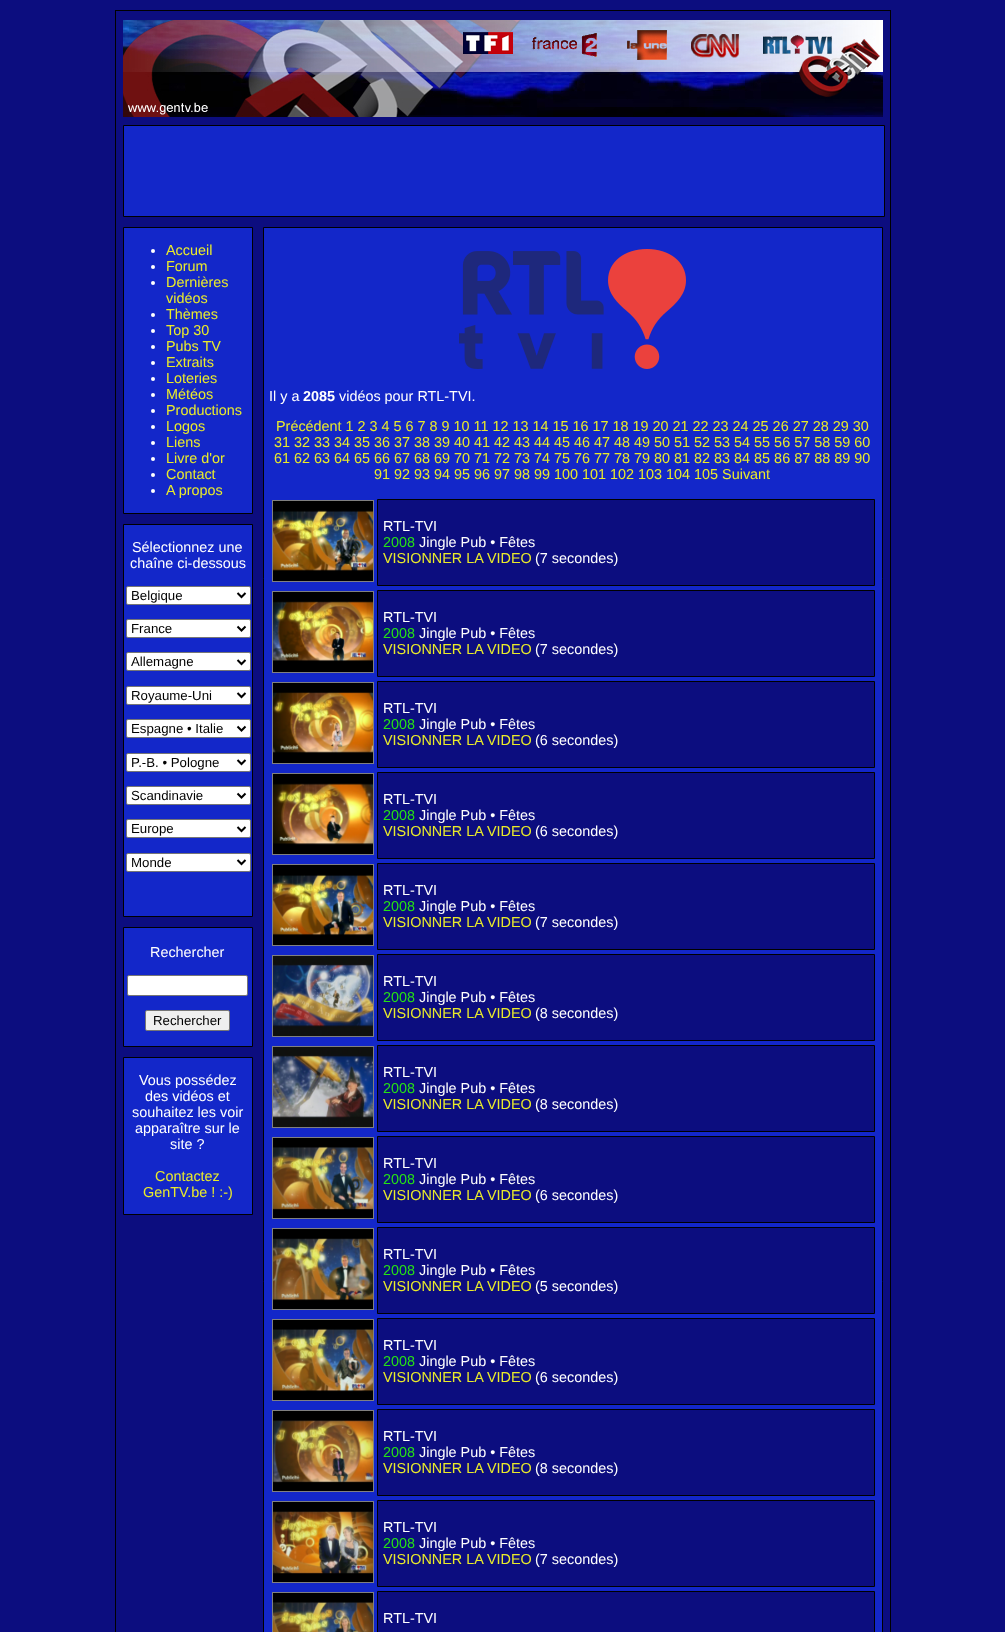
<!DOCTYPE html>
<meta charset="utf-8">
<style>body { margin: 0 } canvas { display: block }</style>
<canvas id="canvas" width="1005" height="1632"></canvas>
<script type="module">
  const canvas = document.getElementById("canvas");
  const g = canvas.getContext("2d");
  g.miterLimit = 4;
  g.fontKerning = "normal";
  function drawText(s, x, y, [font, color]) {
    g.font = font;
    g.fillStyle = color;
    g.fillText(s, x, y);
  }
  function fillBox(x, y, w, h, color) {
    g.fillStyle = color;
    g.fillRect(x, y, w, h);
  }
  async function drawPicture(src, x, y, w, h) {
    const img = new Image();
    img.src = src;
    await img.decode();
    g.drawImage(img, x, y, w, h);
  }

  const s1 = ["14.4px Liberation Sans", "#EAEB2A"];
  const s2 = ["14.4px Liberation Sans", "#FFFFFF"];
  const s3 = ["13.25px Liberation Sans", "#000000"];
  const s4 = ["bold 14.4px Liberation Sans", "#FFFFFF"];
  const s5 = ["14.4px Liberation Sans", "#26E115"];

  fillBox(0, 0, 1005, 1632, "#0C0D7F");
  g.strokeStyle = "#000000";
  g.strokeRect(115.5, 10.5, 775, 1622);
  await drawPicture("pic1.png", 123, 20, 760, 97);
  g.fillStyle = "#1327C9";
  g.beginPath();
  g.rect(123.5, 125.5, 761, 91);
  g.fill();
  g.stroke();
  g.beginPath();
  g.rect(123.5, 227.5, 129, 286);
  g.fill();
  g.stroke();
  g.fillStyle = "#FFFFFF";
  g.beginPath();
  g.arc(153, 251, 2, 0, Math.PI * 2);
  g.fill();
  drawText("Accueil", 166, 255, s1);
  g.fillStyle = "#FFFFFF";
  g.beginPath();
  g.arc(153, 267, 2, 0, Math.PI * 2);
  g.fill();
  drawText("Forum", 166, 271, s1);
  g.fillStyle = "#FFFFFF";
  g.beginPath();
  g.arc(153, 283, 2, 0, Math.PI * 2);
  g.fill();
  drawText("Dernières", 166, 287, s1);
  drawText("vidéos", 166, 303, s1);
  g.fillStyle = "#FFFFFF";
  g.beginPath();
  g.arc(153, 315, 2, 0, Math.PI * 2);
  g.fill();
  drawText("Thèmes", 166, 319, s1);
  g.fillStyle = "#FFFFFF";
  g.beginPath();
  g.arc(153, 331, 2, 0, Math.PI * 2);
  g.fill();
  drawText("Top 30", 166, 335, s1);
  g.fillStyle = "#FFFFFF";
  g.beginPath();
  g.arc(153, 347, 2, 0, Math.PI * 2);
  g.fill();
  drawText("Pubs TV", 166, 351, s1);
  g.fillStyle = "#FFFFFF";
  g.beginPath();
  g.arc(153, 363, 2, 0, Math.PI * 2);
  g.fill();
  drawText("Extraits", 166, 367, s1);
  g.fillStyle = "#FFFFFF";
  g.beginPath();
  g.arc(153, 379, 2, 0, Math.PI * 2);
  g.fill();
  drawText("Loteries", 166, 383, s1);
  g.fillStyle = "#FFFFFF";
  g.beginPath();
  g.arc(153, 395, 2, 0, Math.PI * 2);
  g.fill();
  drawText("Météos", 166, 399, s1);
  g.fillStyle = "#FFFFFF";
  g.beginPath();
  g.arc(153, 411, 2, 0, Math.PI * 2);
  g.fill();
  drawText("Productions", 166, 415, s1);
  g.fillStyle = "#FFFFFF";
  g.beginPath();
  g.arc(153, 427, 2, 0, Math.PI * 2);
  g.fill();
  drawText("Logos", 166, 431, s1);
  g.fillStyle = "#FFFFFF";
  g.beginPath();
  g.arc(153, 443, 2, 0, Math.PI * 2);
  g.fill();
  drawText("Liens", 166, 447, s1);
  g.fillStyle = "#FFFFFF";
  g.beginPath();
  g.arc(153, 459, 2, 0, Math.PI * 2);
  g.fill();
  drawText("Livre d'or", 166, 463, s1);
  g.fillStyle = "#FFFFFF";
  g.beginPath();
  g.arc(153, 475, 2, 0, Math.PI * 2);
  g.fill();
  drawText("Contact", 166, 479, s1);
  g.fillStyle = "#FFFFFF";
  g.beginPath();
  g.arc(153, 491, 2, 0, Math.PI * 2);
  g.fill();
  drawText("A propos", 166, 495, s1);
  g.fillStyle = "#1327C9";
  g.beginPath();
  g.rect(123.5, 524.5, 129, 392);
  g.fill();
  g.stroke();
  drawText("Sélectionnez une", 132, 552, s2);
  drawText("chaîne ci-dessous", 130, 568, s2);
  g.beginPath();
  g.roundRect(126.5, 586.5, 124, 18, 1.5);
  g.fill();
  g.strokeStyle = "#767676";
  g.stroke();
  g.beginPath();
  g.moveTo(237.5, 593);
  g.lineTo(241.5, 597);
  g.lineTo(245.5, 593);
  g.strokeStyle = "#000000";
  g.lineWidth = 2;
  g.stroke();
  drawText("Belgique", 131, 600, s3);
  g.fillStyle = "#FFFFFF";
  g.beginPath();
  g.roundRect(126.5, 619.5, 124, 18, 1.5);
  g.fill();
  g.strokeStyle = "#767676";
  g.lineWidth = 1;
  g.stroke();
  g.beginPath();
  g.moveTo(237.5, 626.5);
  g.lineTo(241.5, 630.5);
  g.lineTo(245.5, 626.5);
  g.strokeStyle = "#000000";
  g.lineWidth = 2;
  g.stroke();
  drawText("France", 131, 633, s3);
  g.fillStyle = "#FFFFFF";
  g.beginPath();
  g.roundRect(126.5, 652.5, 124, 18, 1.5);
  g.fill();
  g.strokeStyle = "#767676";
  g.lineWidth = 1;
  g.stroke();
  g.beginPath();
  g.moveTo(237.5, 660);
  g.lineTo(241.5, 664);
  g.lineTo(245.5, 660);
  g.strokeStyle = "#000000";
  g.lineWidth = 2;
  g.stroke();
  drawText("Allemagne", 131, 666, s3);
  g.fillStyle = "#FFFFFF";
  g.beginPath();
  g.roundRect(126.5, 686.5, 124, 18, 1.5);
  g.fill();
  g.strokeStyle = "#767676";
  g.lineWidth = 1;
  g.stroke();
  g.beginPath();
  g.moveTo(237.5, 693);
  g.lineTo(241.5, 697);
  g.lineTo(245.5, 693);
  g.strokeStyle = "#000000";
  g.lineWidth = 2;
  g.stroke();
  drawText("Royaume-Uni", 131, 700, s3);
  g.fillStyle = "#FFFFFF";
  g.beginPath();
  g.roundRect(126.5, 719.5, 124, 18, 1.5);
  g.fill();
  g.strokeStyle = "#767676";
  g.lineWidth = 1;
  g.stroke();
  g.beginPath();
  g.moveTo(237.5, 726.5);
  g.lineTo(241.5, 730.5);
  g.lineTo(245.5, 726.5);
  g.strokeStyle = "#000000";
  g.lineWidth = 2;
  g.stroke();
  drawText("Espagne • Italie", 131, 733, s3);
  g.fillStyle = "#FFFFFF";
  g.beginPath();
  g.roundRect(126.5, 753.5, 124, 18, 1.5);
  g.fill();
  g.strokeStyle = "#767676";
  g.lineWidth = 1;
  g.stroke();
  g.beginPath();
  g.moveTo(237.5, 760);
  g.lineTo(241.5, 764);
  g.lineTo(245.5, 760);
  g.strokeStyle = "#000000";
  g.lineWidth = 2;
  g.stroke();
  drawText("P.-B. • Pologne", 131, 767, s3);
  g.fillStyle = "#FFFFFF";
  g.beginPath();
  g.roundRect(126.5, 786.5, 124, 18, 1.5);
  g.fill();
  g.strokeStyle = "#767676";
  g.lineWidth = 1;
  g.stroke();
  g.beginPath();
  g.moveTo(237.5, 793.5);
  g.lineTo(241.5, 797.5);
  g.lineTo(245.5, 793.5);
  g.strokeStyle = "#000000";
  g.lineWidth = 2;
  g.stroke();
  drawText("Scandinavie", 131, 800, s3);
  g.fillStyle = "#FFFFFF";
  g.beginPath();
  g.roundRect(126.5, 819.5, 124, 18, 1.5);
  g.fill();
  g.strokeStyle = "#767676";
  g.lineWidth = 1;
  g.stroke();
  g.beginPath();
  g.moveTo(237.5, 827);
  g.lineTo(241.5, 831);
  g.lineTo(245.5, 827);
  g.strokeStyle = "#000000";
  g.lineWidth = 2;
  g.stroke();
  drawText("Europe", 131, 833, s3);
  g.fillStyle = "#FFFFFF";
  g.beginPath();
  g.roundRect(126.5, 853.5, 124, 18, 1.5);
  g.fill();
  g.strokeStyle = "#767676";
  g.lineWidth = 1;
  g.stroke();
  g.beginPath();
  g.moveTo(237.5, 860);
  g.lineTo(241.5, 864);
  g.lineTo(245.5, 860);
  g.strokeStyle = "#000000";
  g.lineWidth = 2;
  g.stroke();
  drawText("Monde", 131, 867, s3);
  g.fillStyle = "#1327C9";
  g.beginPath();
  g.rect(123.5, 927.5, 129, 119);
  g.fill();
  g.lineWidth = 1;
  g.stroke();
  drawText("Rechercher", 150, 957, s2);
  g.beginPath();
  g.roundRect(127.5, 975.5, 120, 20, 1.5);
  g.fill();
  g.strokeStyle = "#767676";
  g.stroke();
  g.fillStyle = "#EFEFEF";
  g.beginPath();
  g.roundRect(145.5, 1010.5, 84, 20, 1.5);
  g.fill();
  g.stroke();
  drawText("Rechercher", 153, 1025, s3);
  g.fillStyle = "#1327C9";
  g.beginPath();
  g.rect(123.5, 1057.5, 129, 157);
  g.fill();
  g.strokeStyle = "#000000";
  g.stroke();
  drawText("Vous possédez", 139, 1085, s2);
  drawText("des vidéos et", 145, 1101, s2);
  drawText("souhaitez les voir", 132, 1117, s2);
  drawText("apparaître sur le", 135, 1133, s2);
  drawText("site ?", 170, 1149, s2);
  drawText("Contactez", 155, 1181, s1);
  drawText("GenTV.be ! :-)", 143, 1197, s1);
  g.fillStyle = "#1327C9";
  g.beginPath();
  g.rect(263.5, 227.5, 619, 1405);
  g.fill();
  g.stroke();
  await drawPicture("pic2.png", 459, 249, 227, 120);
  drawText("Il y a", 269, 401, s2);
  drawText("2085", 303, 401, s4);
  drawText("vidéos pour RTL-TVI.", 339, 401, s2);
  drawText("Précédent 1 2 3 4 5 6 7 8 9 10 11 12 13 14 15 16 17 18 19 20 21 22 23 24 25 26 27 28 29 30", 276, 431, s1);
  drawText("31 32 33 34 35 36 37 38 39 40 41 42 43 44 45 46 47 48 49 50 51 52 53 54 55 56 57 58 59 60", 274, 447, s1);
  drawText("61 62 63 64 65 66 67 68 69 70 71 72 73 74 75 76 77 78 79 80 81 82 83 84 85 86 87 88 89 90", 274, 463, s1);
  drawText("91 92 93 94 95 96 97 98 99 100 101 102 103 104 105 Suivant", 374, 479, s1);
  g.strokeStyle = "#808080";
  g.strokeRect(272.5, 500.5, 101, 81);
  await drawPicture("pic3.png", 273, 501, 100, 80);
  g.fillStyle = "#0C0D7F";
  g.beginPath();
  g.rect(377.5, 499.5, 497, 86);
  g.fill();
  g.strokeStyle = "#000000";
  g.stroke();
  drawText("RTL-TVI", 383, 531, s2);
  drawText("2008", 383, 547, s5);
  drawText("Jingle Pub • Fêtes", 419, 547, s2);
  drawText("VISIONNER LA VIDEO", 383, 563, s1);
  drawText("(7 secondes)", 535, 563, s2);
  g.strokeStyle = "#808080";
  g.strokeRect(272.5, 591.5, 101, 81);
  await drawPicture("pic4.png", 273, 592, 100, 80);
  g.fillStyle = "#0C0D7F";
  g.beginPath();
  g.rect(377.5, 590.5, 497, 86);
  g.fill();
  g.strokeStyle = "#000000";
  g.stroke();
  drawText("RTL-TVI", 383, 622, s2);
  drawText("2008", 383, 638, s5);
  drawText("Jingle Pub • Fêtes", 419, 638, s2);
  drawText("VISIONNER LA VIDEO", 383, 654, s1);
  drawText("(7 secondes)", 535, 654, s2);
  g.strokeStyle = "#808080";
  g.strokeRect(272.5, 682.5, 101, 81);
  await drawPicture("pic5.png", 273, 683, 100, 80);
  g.fillStyle = "#0C0D7F";
  g.beginPath();
  g.rect(377.5, 681.5, 497, 86);
  g.fill();
  g.strokeStyle = "#000000";
  g.stroke();
  drawText("RTL-TVI", 383, 713, s2);
  drawText("2008", 383, 729, s5);
  drawText("Jingle Pub • Fêtes", 419, 729, s2);
  drawText("VISIONNER LA VIDEO", 383, 745, s1);
  drawText("(6 secondes)", 535, 745, s2);
  g.strokeStyle = "#808080";
  g.strokeRect(272.5, 773.5, 101, 81);
  await drawPicture("pic6.png", 273, 774, 100, 80);
  g.fillStyle = "#0C0D7F";
  g.beginPath();
  g.rect(377.5, 772.5, 497, 86);
  g.fill();
  g.strokeStyle = "#000000";
  g.stroke();
  drawText("RTL-TVI", 383, 804, s2);
  drawText("2008", 383, 820, s5);
  drawText("Jingle Pub • Fêtes", 419, 820, s2);
  drawText("VISIONNER LA VIDEO", 383, 836, s1);
  drawText("(6 secondes)", 535, 836, s2);
  g.strokeStyle = "#808080";
  g.strokeRect(272.5, 864.5, 101, 81);
  await drawPicture("pic7.png", 273, 865, 100, 80);
  g.fillStyle = "#0C0D7F";
  g.beginPath();
  g.rect(377.5, 863.5, 497, 86);
  g.fill();
  g.strokeStyle = "#000000";
  g.stroke();
  drawText("RTL-TVI", 383, 895, s2);
  drawText("2008", 383, 911, s5);
  drawText("Jingle Pub • Fêtes", 419, 911, s2);
  drawText("VISIONNER LA VIDEO", 383, 927, s1);
  drawText("(7 secondes)", 535, 927, s2);
  g.strokeStyle = "#808080";
  g.strokeRect(272.5, 955.5, 101, 81);
  await drawPicture("pic8.png", 273, 956, 100, 80);
  g.fillStyle = "#0C0D7F";
  g.beginPath();
  g.rect(377.5, 954.5, 497, 86);
  g.fill();
  g.strokeStyle = "#000000";
  g.stroke();
  drawText("RTL-TVI", 383, 986, s2);
  drawText("2008", 383, 1002, s5);
  drawText("Jingle Pub • Fêtes", 419, 1002, s2);
  drawText("VISIONNER LA VIDEO", 383, 1018, s1);
  drawText("(8 secondes)", 535, 1018, s2);
  g.strokeStyle = "#808080";
  g.strokeRect(272.5, 1046.5, 101, 81);
  await drawPicture("pic9.png", 273, 1047, 100, 80);
  g.fillStyle = "#0C0D7F";
  g.beginPath();
  g.rect(377.5, 1045.5, 497, 86);
  g.fill();
  g.strokeStyle = "#000000";
  g.stroke();
  drawText("RTL-TVI", 383, 1077, s2);
  drawText("2008", 383, 1093, s5);
  drawText("Jingle Pub • Fêtes", 419, 1093, s2);
  drawText("VISIONNER LA VIDEO", 383, 1109, s1);
  drawText("(8 secondes)", 535, 1109, s2);
  g.strokeStyle = "#808080";
  g.strokeRect(272.5, 1137.5, 101, 81);
  await drawPicture("pic10.png", 273, 1138, 100, 80);
  g.fillStyle = "#0C0D7F";
  g.beginPath();
  g.rect(377.5, 1136.5, 497, 86);
  g.fill();
  g.strokeStyle = "#000000";
  g.stroke();
  drawText("RTL-TVI", 383, 1168, s2);
  drawText("2008", 383, 1184, s5);
  drawText("Jingle Pub • Fêtes", 419, 1184, s2);
  drawText("VISIONNER LA VIDEO", 383, 1200, s1);
  drawText("(6 secondes)", 535, 1200, s2);
  g.strokeStyle = "#808080";
  g.strokeRect(272.5, 1228.5, 101, 81);
  await drawPicture("pic11.png", 273, 1229, 100, 80);
  g.fillStyle = "#0C0D7F";
  g.beginPath();
  g.rect(377.5, 1227.5, 497, 86);
  g.fill();
  g.strokeStyle = "#000000";
  g.stroke();
  drawText("RTL-TVI", 383, 1259, s2);
  drawText("2008", 383, 1275, s5);
  drawText("Jingle Pub • Fêtes", 419, 1275, s2);
  drawText("VISIONNER LA VIDEO", 383, 1291, s1);
  drawText("(5 secondes)", 535, 1291, s2);
  g.strokeStyle = "#808080";
  g.strokeRect(272.5, 1319.5, 101, 81);
  await drawPicture("pic12.png", 273, 1320, 100, 80);
  g.fillStyle = "#0C0D7F";
  g.beginPath();
  g.rect(377.5, 1318.5, 497, 86);
  g.fill();
  g.strokeStyle = "#000000";
  g.stroke();
  drawText("RTL-TVI", 383, 1350, s2);
  drawText("2008", 383, 1366, s5);
  drawText("Jingle Pub • Fêtes", 419, 1366, s2);
  drawText("VISIONNER LA VIDEO", 383, 1382, s1);
  drawText("(6 secondes)", 535, 1382, s2);
  g.strokeStyle = "#808080";
  g.strokeRect(272.5, 1410.5, 101, 81);
  await drawPicture("pic13.png", 273, 1411, 100, 80);
  g.fillStyle = "#0C0D7F";
  g.beginPath();
  g.rect(377.5, 1409.5, 497, 86);
  g.fill();
  g.strokeStyle = "#000000";
  g.stroke();
  drawText("RTL-TVI", 383, 1441, s2);
  drawText("2008", 383, 1457, s5);
  drawText("Jingle Pub • Fêtes", 419, 1457, s2);
  drawText("VISIONNER LA VIDEO", 383, 1473, s1);
  drawText("(8 secondes)", 535, 1473, s2);
  g.strokeStyle = "#808080";
  g.strokeRect(272.5, 1501.5, 101, 81);
  await drawPicture("pic14.png", 273, 1502, 100, 80);
  g.fillStyle = "#0C0D7F";
  g.beginPath();
  g.rect(377.5, 1500.5, 497, 86);
  g.fill();
  g.strokeStyle = "#000000";
  g.stroke();
  drawText("RTL-TVI", 383, 1532, s2);
  drawText("2008", 383, 1548, s5);
  drawText("Jingle Pub • Fêtes", 419, 1548, s2);
  drawText("VISIONNER LA VIDEO", 383, 1564, s1);
  drawText("(7 secondes)", 535, 1564, s2);
  g.strokeStyle = "#808080";
  g.strokeRect(272.5, 1592.5, 101, 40);
  await drawPicture("pic15.png", 273, 1593, 100, 39);
  g.fillStyle = "#0C0D7F";
  g.beginPath();
  g.rect(377.5, 1591.5, 497, 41);
  g.fill();
  g.strokeStyle = "#000000";
  g.stroke();
  drawText("RTL-TVI", 383, 1623, s2);
</script>
